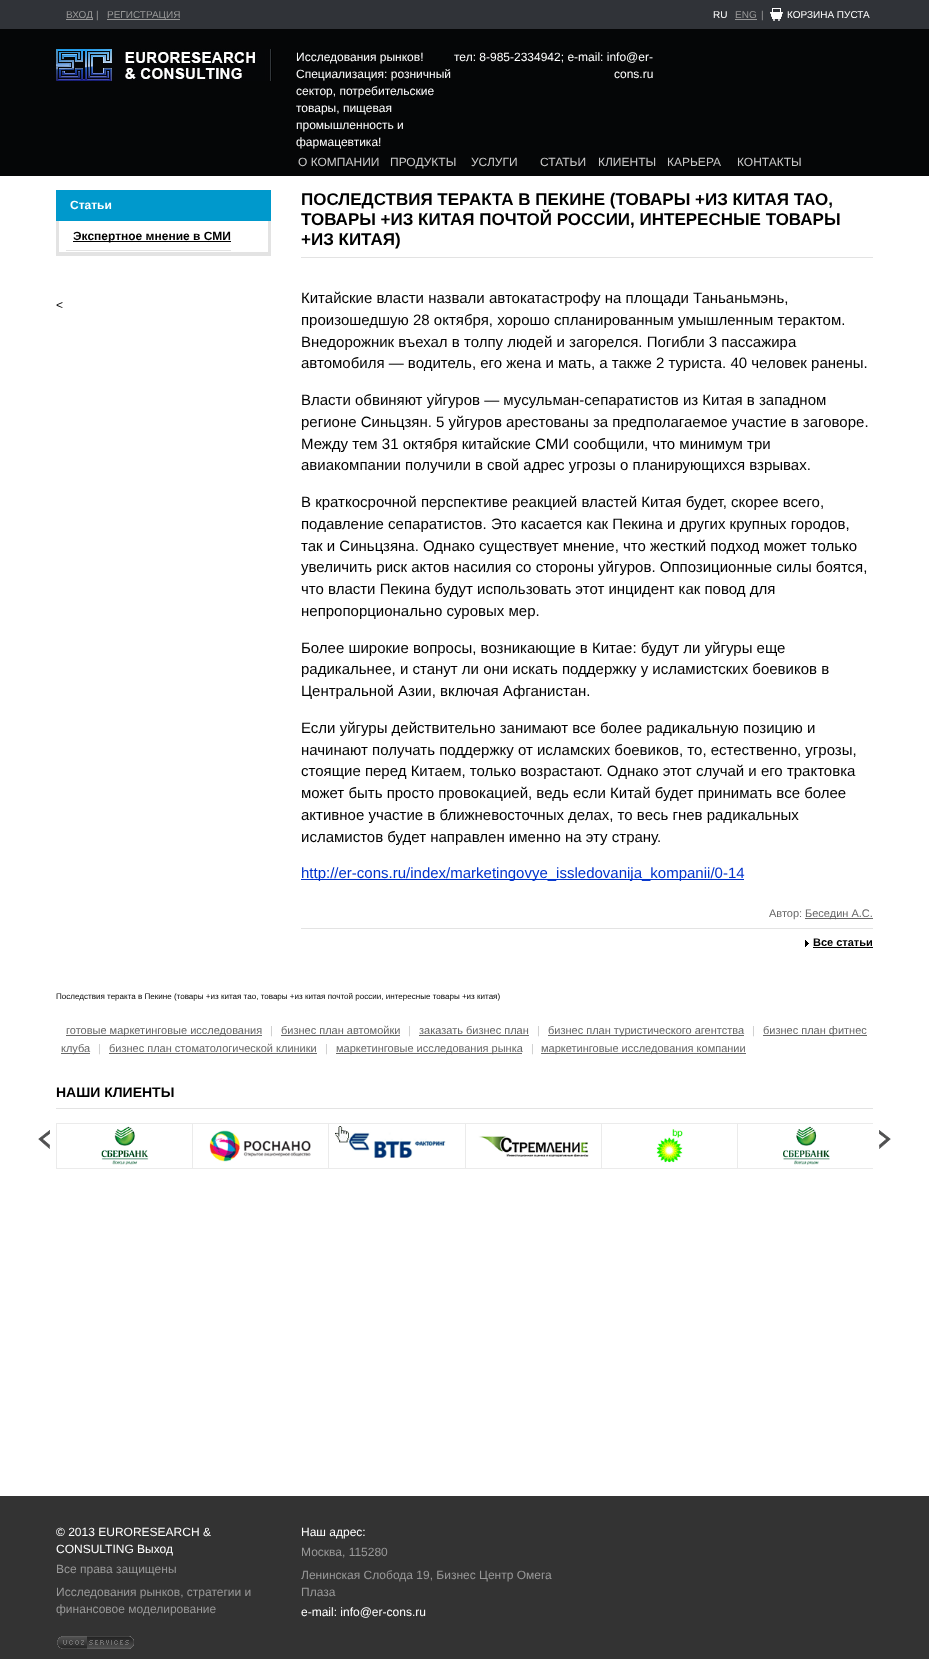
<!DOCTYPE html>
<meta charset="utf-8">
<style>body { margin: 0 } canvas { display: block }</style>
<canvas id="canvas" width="929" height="1659"></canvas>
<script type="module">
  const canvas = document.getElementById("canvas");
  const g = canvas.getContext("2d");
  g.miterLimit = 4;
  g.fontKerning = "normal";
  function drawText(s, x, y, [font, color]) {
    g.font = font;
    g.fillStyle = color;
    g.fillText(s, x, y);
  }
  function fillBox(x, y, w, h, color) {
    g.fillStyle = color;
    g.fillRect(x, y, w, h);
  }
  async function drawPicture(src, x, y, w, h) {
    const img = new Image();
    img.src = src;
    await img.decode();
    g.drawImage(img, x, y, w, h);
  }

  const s1 = ["10px Liberation Sans", "#999999"];
  const s2 = ["10px Liberation Sans", "#FFFFFF"];
  const s3 = ["12px Liberation Sans", "#FFFFFF"];
  const s4 = ["12px Liberation Sans", "#CCCCCC"];
  const s5 = ["bold 12px Liberation Sans", "#FFFFFF"];
  const s6 = ["bold 12px Liberation Sans", "#000000"];
  const s7 = ["12px Liberation Sans", "#000000"];
  const s8 = ["bold 17px Liberation Sans", "#000000"];
  const s9 = ["15px Liberation Sans", "#000000"];
  const s10 = ["15px Liberation Sans", "#0033CC"];
  const s11 = ["11px Liberation Sans", "#666666"];
  const s12 = ["bold 11px Liberation Sans", "#000000"];
  const s13 = ["8.05px Liberation Sans", "#000000"];
  const s14 = ["11px Liberation Sans", "#CCCCCC"];
  const s15 = ["bold 14px Liberation Sans", "#000000"];
  const s16 = ["12px Liberation Sans", "#999999"];

  fillBox(0, 0, 929, 1659, "#FFFFFF");
  fillBox(0, 0, 929, 29, "#303338");
  fillBox(66, 19, 27, 1, "#999999");
  drawText("ВХОД", 66, 18, s1);
  drawText("|", 96, 18, s1);
  fillBox(107, 19, 73, 1, "#999999");
  drawText("РЕГИСТРАЦИЯ", 107, 18, s1);
  drawText("RU", 713, 18, s2);
  drawText("ENG", 735, 18, s1);
  fillBox(735, 19, 22, 1, "#999999");
  drawText("|", 761, 18, s1);
  await drawPicture("pic1.png", 770, 8, 13, 13);
  drawText("КОРЗИНА ПУСТА", 787, 18, s2);
  fillBox(0, 29, 929, 147, "#050607");
  await drawPicture("pic2.png", 56, 49, 216, 32);
  drawText("Исследования рынков!", 296, 61, s3);
  drawText("Специализация: розничный", 296, 78, s3);
  drawText("сектор, потребительские", 296, 95, s3);
  drawText("товары, пищевая", 296, 112, s3);
  drawText("промышленность и", 296, 129, s3);
  drawText("фармацевтика!", 296, 146, s3);
  drawText("тел: 8-985-2334942; e-mail: info@er-", 454, 61, s3);
  drawText("cons.ru", 614, 78, s3);
  drawText("О КОМПАНИИ", 298, 166, s4);
  drawText("ПРОДУКТЫ", 390, 166, s4);
  drawText("УСЛУГИ", 471, 166, s4);
  drawText("СТАТЬИ", 540, 166, s4);
  drawText("КЛИЕНТЫ", 598, 166, s4);
  drawText("КАРЬЕРА", 667, 166, s4);
  drawText("КОНТАКТЫ", 737, 166, s4);
  fillBox(56, 190, 215, 31, "#0099CC");
  drawText("Статьи", 70, 209, s5);
  fillBox(268, 221, 3, 35, "#E3E3E3");
  fillBox(56, 253, 215, 3, "#E3E3E3");
  fillBox(56, 221, 3, 35, "#E3E3E3");
  fillBox(59, 252, 209, 1, "#E3E3E3");
  fillBox(73, 241, 158, 1, "#000000");
  drawText("Экспертное мнение в СМИ", 73, 240, s6);
  fillBox(66, 250, 165, 1, "#E3E3E3");
  drawText("<", 56, 309, s7);
  fillBox(301, 257, 572, 1, "#E3E3E3");
  drawText("ПОСЛЕДСТВИЯ ТЕРАКТА В ПЕКИНЕ (ТОВАРЫ +ИЗ КИТАЯ ТАО,", 301, 205, s8);
  drawText("ТОВАРЫ +ИЗ КИТАЯ ПОЧТОЙ РОССИИ, ИНТЕРЕСНЫЕ ТОВАРЫ", 301, 225, s8);
  drawText("+ИЗ КИТАЯ)", 301, 245, s8);
  drawText("Китайские власти назвали автокатастрофу на площади Таньаньмэнь,", 301, 303, s9);
  drawText("произошедшую 28 октября, хорошо спланированным умышленным терактом.", 301, 325, s9);
  drawText("Внедорожник въехал в толпу людей и загорелся. Погибли 3 пассажира", 301, 347, s9);
  drawText("автомобиля — водитель, его жена и мать, а также 2 туриста. 40 человек ранены.", 301, 368, s9);
  drawText("Власти обвиняют уйгуров — мусульман-сепаратистов из Китая в западном", 301, 405, s9);
  drawText("регионе Синьцзян. 5 уйгуров арестованы за предполагаемое участие в заговоре.", 301, 427, s9);
  drawText("Между тем 31 октября китайские СМИ сообщили, что минимум три", 301, 449, s9);
  drawText("авиакомпании получили в свой адрес угрозы о планирующихся взрывах.", 301, 470, s9);
  drawText("В краткосрочной перспективе реакцией властей Китая будет, скорее всего,", 301, 507, s9);
  drawText("подавление сепаратистов. Это касается как Пекина и других крупных городов,", 301, 529, s9);
  drawText("так и Синьцзяна. Однако существует мнение, что жесткий подход может только", 301, 551, s9);
  drawText("увеличить риск актов насилия со стороны уйгуров. Оппозиционные силы боятся,", 301, 572, s9);
  drawText("что власти Пекина будут использовать этот инцидент как повод для", 301, 594, s9);
  drawText("непропорционально суровых мер.", 301, 616, s9);
  drawText("Более широкие вопросы, возникающие в Китае: будут ли уйгуры еще", 301, 653, s9);
  drawText("радикальнее, и станут ли они искать поддержку у исламистских боевиков в", 301, 674, s9);
  drawText("Центральной Азии, включая Афганистан.", 301, 696, s9);
  drawText("Если уйгуры действительно занимают все более радикальную позицию и", 301, 733, s9);
  drawText("начинают получать поддержку от исламских боевиков, то, естественно, угрозы,", 301, 755, s9);
  drawText("стоящие перед Китаем, только возрастают. Однако этот случай и его трактовка", 301, 776, s9);
  drawText("может быть просто провокацией, ведь если Китай будет принимать все более", 301, 798, s9);
  drawText("активное участие в ближневосточных делах, то весь гнев радикальных", 301, 820, s9);
  drawText("исламистов будет направлен именно на эту страну.", 301, 842, s9);
  fillBox(301, 879, 443, 1, "#0033CC");
  drawText("http://er-cons.ru/index/marketingovye_issledovanija_kompanii/0-14", 301, 878, s10);
  fillBox(301, 928, 572, 1, "#E3E3E3");
  drawText("Автор:", 769, 917, s11);
  fillBox(805, 918, 68, 1, "#666666");
  drawText("Беседин А.С.", 805, 917, s11);
  await drawPicture("pic3.png", 805, 940, 4, 7);
  drawText("Все статьи", 813, 946, s12);
  fillBox(813, 947, 60, 1, "#000000");
  drawText("Последствия теракта в Пекине (товары +из китая тао, товары +из китая почтой россии, интересные товары +из китая)", 56, 999, s13);
  fillBox(66, 1035, 196, 1, "#666666");
  drawText("готовые маркетинговые исследования", 66, 1034, s11);
  drawText("|", 270, 1034, s14);
  drawText("бизнес план автомойки", 281, 1034, s11);
  fillBox(281, 1035, 119, 1, "#666666");
  drawText("|", 408, 1034, s14);
  drawText("заказать бизнес план", 419, 1034, s11);
  fillBox(419, 1035, 110, 1, "#666666");
  drawText("|", 537, 1034, s14);
  fillBox(548, 1035, 196, 1, "#666666");
  drawText("бизнес план туристического агентства", 548, 1034, s11);
  drawText("|", 752, 1034, s14);
  fillBox(763, 1035, 104, 1, "#666666");
  drawText("бизнес план фитнес", 763, 1034, s11);
  fillBox(61, 1053, 29, 1, "#666666");
  drawText("клуба", 61, 1052, s11);
  drawText("|", 98, 1052, s14);
  drawText("бизнес план стоматологической клиники", 109, 1052, s11);
  fillBox(109, 1053, 208, 1, "#666666");
  drawText("|", 325, 1052, s14);
  fillBox(336, 1053, 186, 1, "#666666");
  drawText("маркетинговые исследования рынка", 336, 1052, s11);
  drawText("|", 531, 1052, s14);
  fillBox(541, 1053, 205, 1, "#666666");
  drawText("маркетинговые исследования компании", 541, 1052, s11);
  fillBox(56, 1108, 817, 1, "#E3E3E3");
  drawText("НАШИ КЛИЕНТЫ", 56, 1097, s15);
  fillBox(56, 1123, 817, 46, "#EBEBEB");
  await drawPicture("pic4.png", 57, 1124, 135, 44);
  await drawPicture("pic5.png", 193, 1124, 135, 44);
  await drawPicture("pic6.png", 329, 1124, 136, 44);
  await drawPicture("pic7.png", 466, 1124, 135, 44);
  await drawPicture("pic8.png", 602, 1124, 135, 44);
  await drawPicture("pic9.png", 738, 1124, 135, 44);
  await drawPicture("pic10.png", 38, 1130, 12, 19);
  await drawPicture("pic11.png", 879, 1130, 12, 19);
  fillBox(0, 1496, 929, 163, "#333333");
  drawText("© 2013 EURORESEARCH &", 56, 1536, s3);
  drawText("CONSULTING Выход", 56, 1553, s3);
  drawText("Все права защищены", 56, 1573, s16);
  drawText("Исследования рынков, стратегии и", 56, 1596, s16);
  drawText("финансовое моделирование", 56, 1613, s16);
  await drawPicture("pic12.png", 57, 1636, 77, 13);
  drawText("Наш адрес:", 301, 1536, s3);
  drawText("Москва, 115280", 301, 1556, s16);
  drawText("Ленинская Слобода 19, Бизнес Центр Омега", 301, 1579, s16);
  drawText("Плаза", 301, 1596, s16);
  drawText("e-mail: info@er-cons.ru", 301, 1616, s3);
</script>
